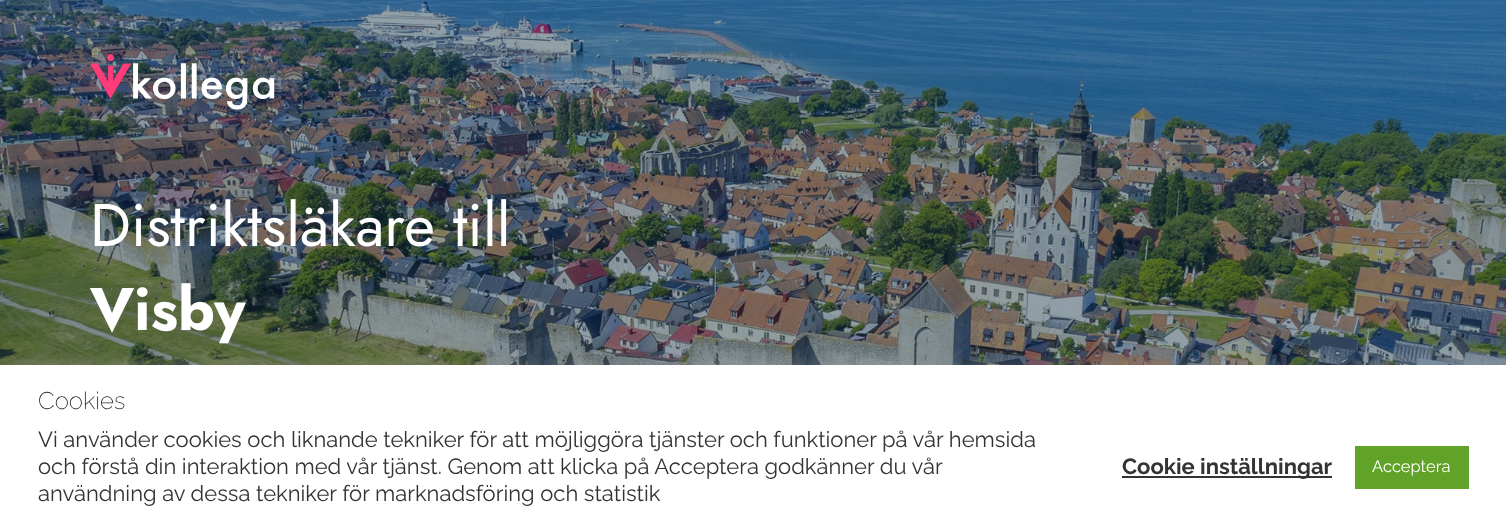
<!DOCTYPE html>
<meta charset="utf-8">
<style>body { margin: 0 } canvas { display: block }</style>
<canvas id="canvas" width="1506" height="527"></canvas>
<script type="module">
  const canvas = document.getElementById("canvas");
  const g = canvas.getContext("2d");
  g.miterLimit = 4;
  g.fontKerning = "normal";
  function drawText(s, x, y, [font, color]) {
    g.font = font;
    g.fillStyle = color;
    g.fillText(s, x, y);
  }
  function fillBox(x, y, w, h, color) {
    g.fillStyle = color;
    g.fillRect(x, y, w, h);
  }
  async function drawPicture(src, x, y, w, h) {
    const img = new Image();
    img.src = src;
    await img.decode();
    g.drawImage(img, x, y, w, h);
  }

  const s1 = ["60px Jost", "#FFFFFF"];
  const s2 = ["bold 60px Jost", "#FFFFFF"];
  const s3 = ["200 24px Raleway", "#272727"];
  const s4 = ["22px Raleway", "#333333"];
  const s5 = ["bold 22px Raleway", "#333333"];
  const s6 = ["16.5px Raleway", "#FFFFFF"];

  fillBox(0, 0, 1506, 527, "#FFFFFF");
  await drawPicture("pic1.png", 0, 0, 1506, 365);
  await drawPicture("pic2.png", 90, 54, 185, 56);
  drawText("Distriktsläkare till", 90, 246, s1);
  drawText("Visby", 90, 330, s2);
  g.fillStyle = "rgba(172, 171, 171, 0.3)";
  g.filter = "blur(7.5px)";
  g.beginPath();
  g.rect(0, 363, 1506, 164);
  g.fill();
  g.filter = "none";
  fillBox(0, 365, 1506, 162, "#FFFFFF");
  drawText("Cookies", 38, 409, s3);
  drawText("Vi använder cookies och liknande tekniker för att möjliggöra tjänster och funktioner på vår hemsida", 38, 447, s4);
  drawText("och förstå din interaktion med vår tjänst. Genom att klicka på Acceptera godkänner du vår", 38, 474, s4);
  drawText("användning av dessa tekniker för marknadsföring och statistik", 38, 501, s4);
  fillBox(1122, 476, 210, 2, "#333333");
  drawText("Cookie inställningar", 1122, 474, s5);
  fillBox(1355, 446, 114, 43, "#61A229");
  drawText("Acceptera", 1372, 472, s6);
</script>
